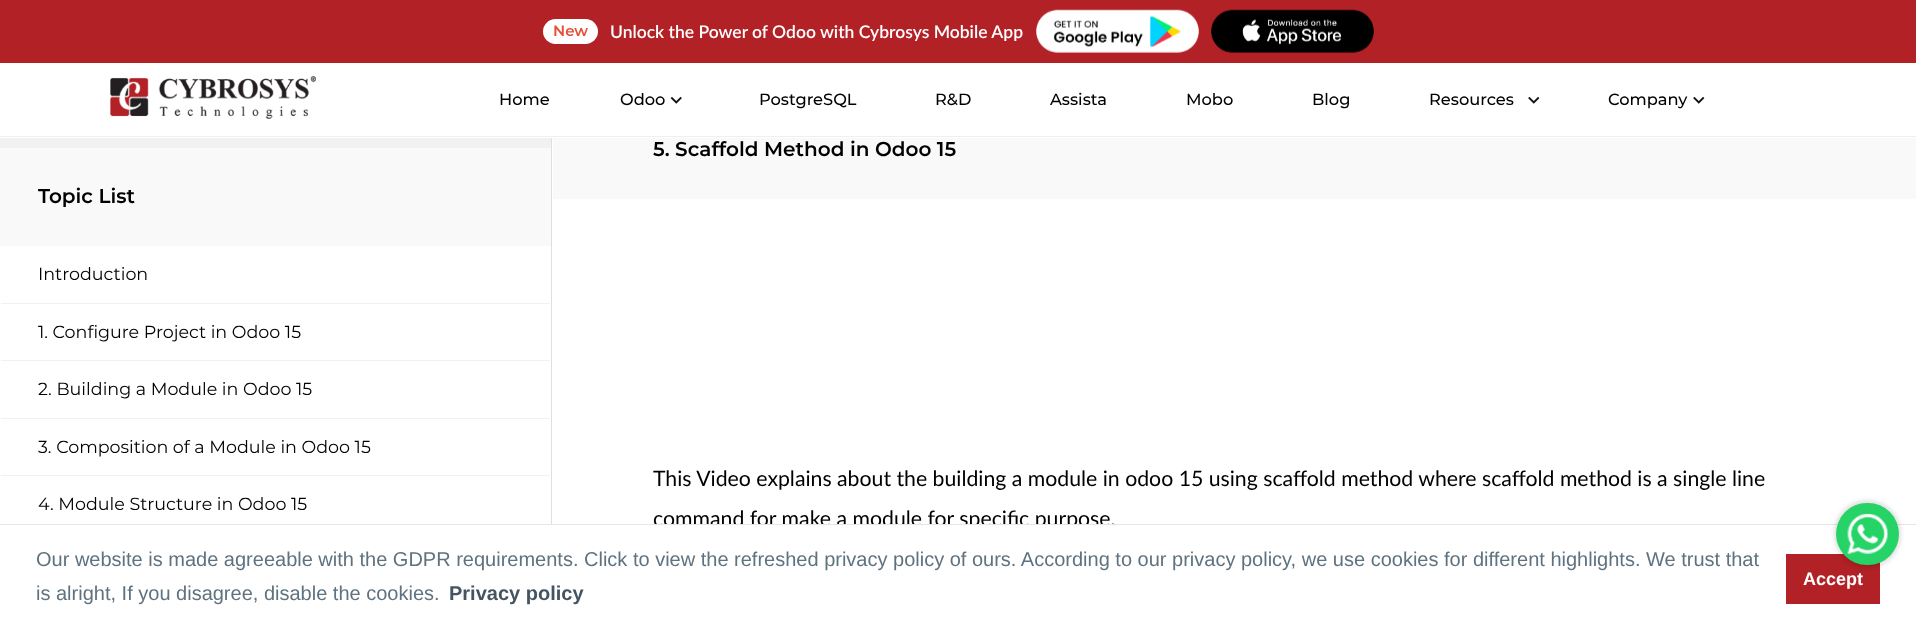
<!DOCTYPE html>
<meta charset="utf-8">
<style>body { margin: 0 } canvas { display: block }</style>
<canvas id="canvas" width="1916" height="632"></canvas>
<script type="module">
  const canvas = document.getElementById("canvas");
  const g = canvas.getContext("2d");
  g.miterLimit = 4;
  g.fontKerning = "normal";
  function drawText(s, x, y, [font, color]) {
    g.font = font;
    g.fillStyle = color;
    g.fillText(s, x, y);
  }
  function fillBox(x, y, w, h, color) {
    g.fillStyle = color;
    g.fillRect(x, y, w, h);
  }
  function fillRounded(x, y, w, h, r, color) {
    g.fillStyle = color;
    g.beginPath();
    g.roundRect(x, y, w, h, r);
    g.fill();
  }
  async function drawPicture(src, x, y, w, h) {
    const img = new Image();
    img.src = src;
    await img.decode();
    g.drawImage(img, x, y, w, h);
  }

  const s1 = ["600 15px Montserrat", "#E54F38"];
  const s2 = ["600 17.5px Lato", "#FFFFFF"];
  const s3 = ["500 16.25px Montserrat", "#000000"];
  const s4 = ["600 20px Montserrat", "#000000"];
  const s5 = ["17.5px Montserrat", "#000000"];
  const s6 = ["21.25px Lato", "#000000"];
  const s7 = ["20px Liberation Sans", "#5F727F"];
  const s8 = ["bold 20px Liberation Sans", "#445460"];
  const s9 = ["bold 18px Liberation Sans", "#FFFFFF"];

  fillBox(0, 0, 1916, 632, "#FFFFFF");
  fillBox(0, 0, 1916, 63, "#B22126");
  fillRounded(543, 19, 55, 25, 12.5, "#FFFFFF");
  drawText("New", 553, 36, s1);
  drawText("Unlock the Power of Odoo with Cybrosys Mobile App", 610, 38, s2);
  await drawPicture("pic1.png", 1036, 9, 163, 44);
  await drawPicture("pic2.png", 1211, 9, 163, 44);
  fillBox(0, 136, 1916, 1, "#EFEFEF");
  await drawPicture("pic3.png", 110, 76, 206, 43);
  drawText("Home", 499, 105, s3);
  drawText("Odoo", 620, 105, s3);
  await drawPicture("pic4.png", 670, 96, 12, 8);
  drawText("PostgreSQL", 759, 105, s3);
  drawText("R&D", 935, 105, s3);
  drawText("Assista", 1050, 105, s3);
  drawText("Mobo", 1186, 105, s3);
  drawText("Blog", 1312, 105, s3);
  drawText("Resources", 1429, 105, s3);
  await drawPicture("pic5.png", 1528, 96, 12, 8);
  drawText("Company", 1608, 105, s3);
  await drawPicture("pic5.png", 1693, 96, 12, 8);
  fillBox(551, 138, 1, 386, "#DFDFDF");
  fillBox(0, 138, 551, 10, "#F1F1F1");
  fillBox(0, 148, 551, 98, "#F9F9F9");
  drawText("Topic List", 38, 203, s4);
  fillBox(1, 303, 549, 1, "#F1F1F1");
  drawText("Introduction", 38, 280, s5);
  fillBox(1, 360, 549, 1, "#F1F1F1");
  drawText("1. Configure Project in Odoo 15", 38, 338, s5);
  fillBox(1, 418, 549, 1, "#F1F1F1");
  drawText("2. Building a Module in Odoo 15", 38, 395, s5);
  fillBox(1, 475, 549, 1, "#F1F1F1");
  drawText("3. Composition of a Module in Odoo 15", 38, 453, s5);
  drawText("4. Module Structure in Odoo 15", 38, 510, s5);
  fillBox(553, 138, 1363, 61, "#F9F9F9");
  drawText("5. Scaffold Method in Odoo 15", 653, 156, s4);
  drawText("This Video explains about the building a module in odoo 15 using scaffold method where scaffold method is a single line", 653, 486, s6);
  drawText("command for make a module for specific purpose.", 653, 526, s6);
  fillBox(0, 524, 1916, 1, "#E6E6E6");
  fillBox(1786, 554, 94, 50, "#B22126");
  g.fillStyle = "rgba(0, 0, 0, 0.12)";
  g.filter = "blur(2px)";
  g.beginPath();
  g.roundRect(1834, 500, 67, 68, 33.5);
  g.fill();
  g.filter = "none";
  fillRounded(1836, 503, 63, 62, 31, "#25D366");
  await drawPicture("pic6.png", 1847, 513, 41, 41);
  fillBox(655, 525, 459, 5, "#FFFFFF");
  drawText("Our website is made agreeable with the GDPR requirements. Click to view the refreshed privacy policy of ours. According to our privacy policy, we use cookies for different highlights. We trust that", 36, 566, s7);
  drawText("is alright, If you disagree, disable the cookies.", 36, 600, s7);
  drawText("Privacy policy", 449, 600, s8);
  drawText("Accept", 1803, 585, s9);
</script>
